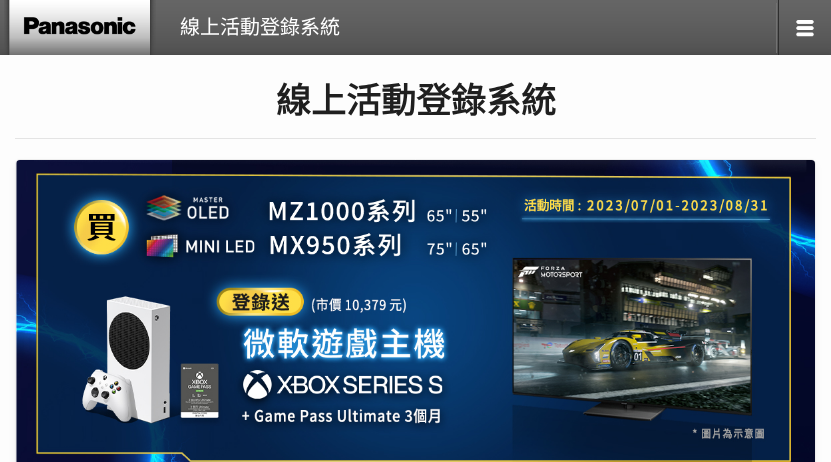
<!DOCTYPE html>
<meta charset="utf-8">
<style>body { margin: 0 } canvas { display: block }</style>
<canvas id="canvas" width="831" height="462"></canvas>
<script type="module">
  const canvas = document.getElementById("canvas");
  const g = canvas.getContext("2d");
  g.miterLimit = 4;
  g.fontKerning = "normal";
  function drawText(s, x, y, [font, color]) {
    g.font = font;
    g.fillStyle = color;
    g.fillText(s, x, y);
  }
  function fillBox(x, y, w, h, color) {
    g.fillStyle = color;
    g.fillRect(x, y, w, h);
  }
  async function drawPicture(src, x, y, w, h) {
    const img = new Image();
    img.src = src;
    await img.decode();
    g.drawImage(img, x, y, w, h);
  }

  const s1 = ["20px Noto Sans CJK TC", "#FFFFFF"];
  const s2 = ["bold 35px Noto Sans CJK TC", "#1F1F1F"];

  fillBox(0, 0, 831, 462, "#FFFFFF");
  await drawPicture("pic1.png", 0, 0, 831, 55);
  await drawPicture("pic2.png", 4, 0, 152, 55);
  drawText("線上活動登錄系統", 180, 34, s1);
  g.fillStyle = "rgba(0, 0, 0, 0.15)";
  g.filter = "blur(3px)";
  g.beginPath();
  g.rect(0, 55, 831, 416);
  g.fill();
  g.filter = "none";
  fillBox(776, 3, 1, 50, "#727272");
  fillBox(778, 0, 1, 55, "#2E2E2E");
  await drawPicture("pic3.png", 796, 20, 18, 17);
  fillBox(0, 55, 831, 407, "#FDFDFD");
  fillBox(15, 138, 801, 1, "#E4E4E4");
  drawText("線上活動登錄系統", 276, 113, s2);
  g.fillStyle = "rgba(0, 0, 0, 0.05)";
  g.filter = "blur(3px)";
  g.beginPath();
  g.roundRect(15, 163, 801, 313, 5);
  g.fill();
  g.filter = "none";
  g.fillStyle = "#FFFFFF";
  g.beginPath();
  g.roundRect(15.5, 159.5, 800, 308, 4.5);
  g.fill();
  g.strokeStyle = "#EDEDED";
  g.stroke();
  await drawPicture("pic4.png", 16, 160, 799, 302);
</script>
